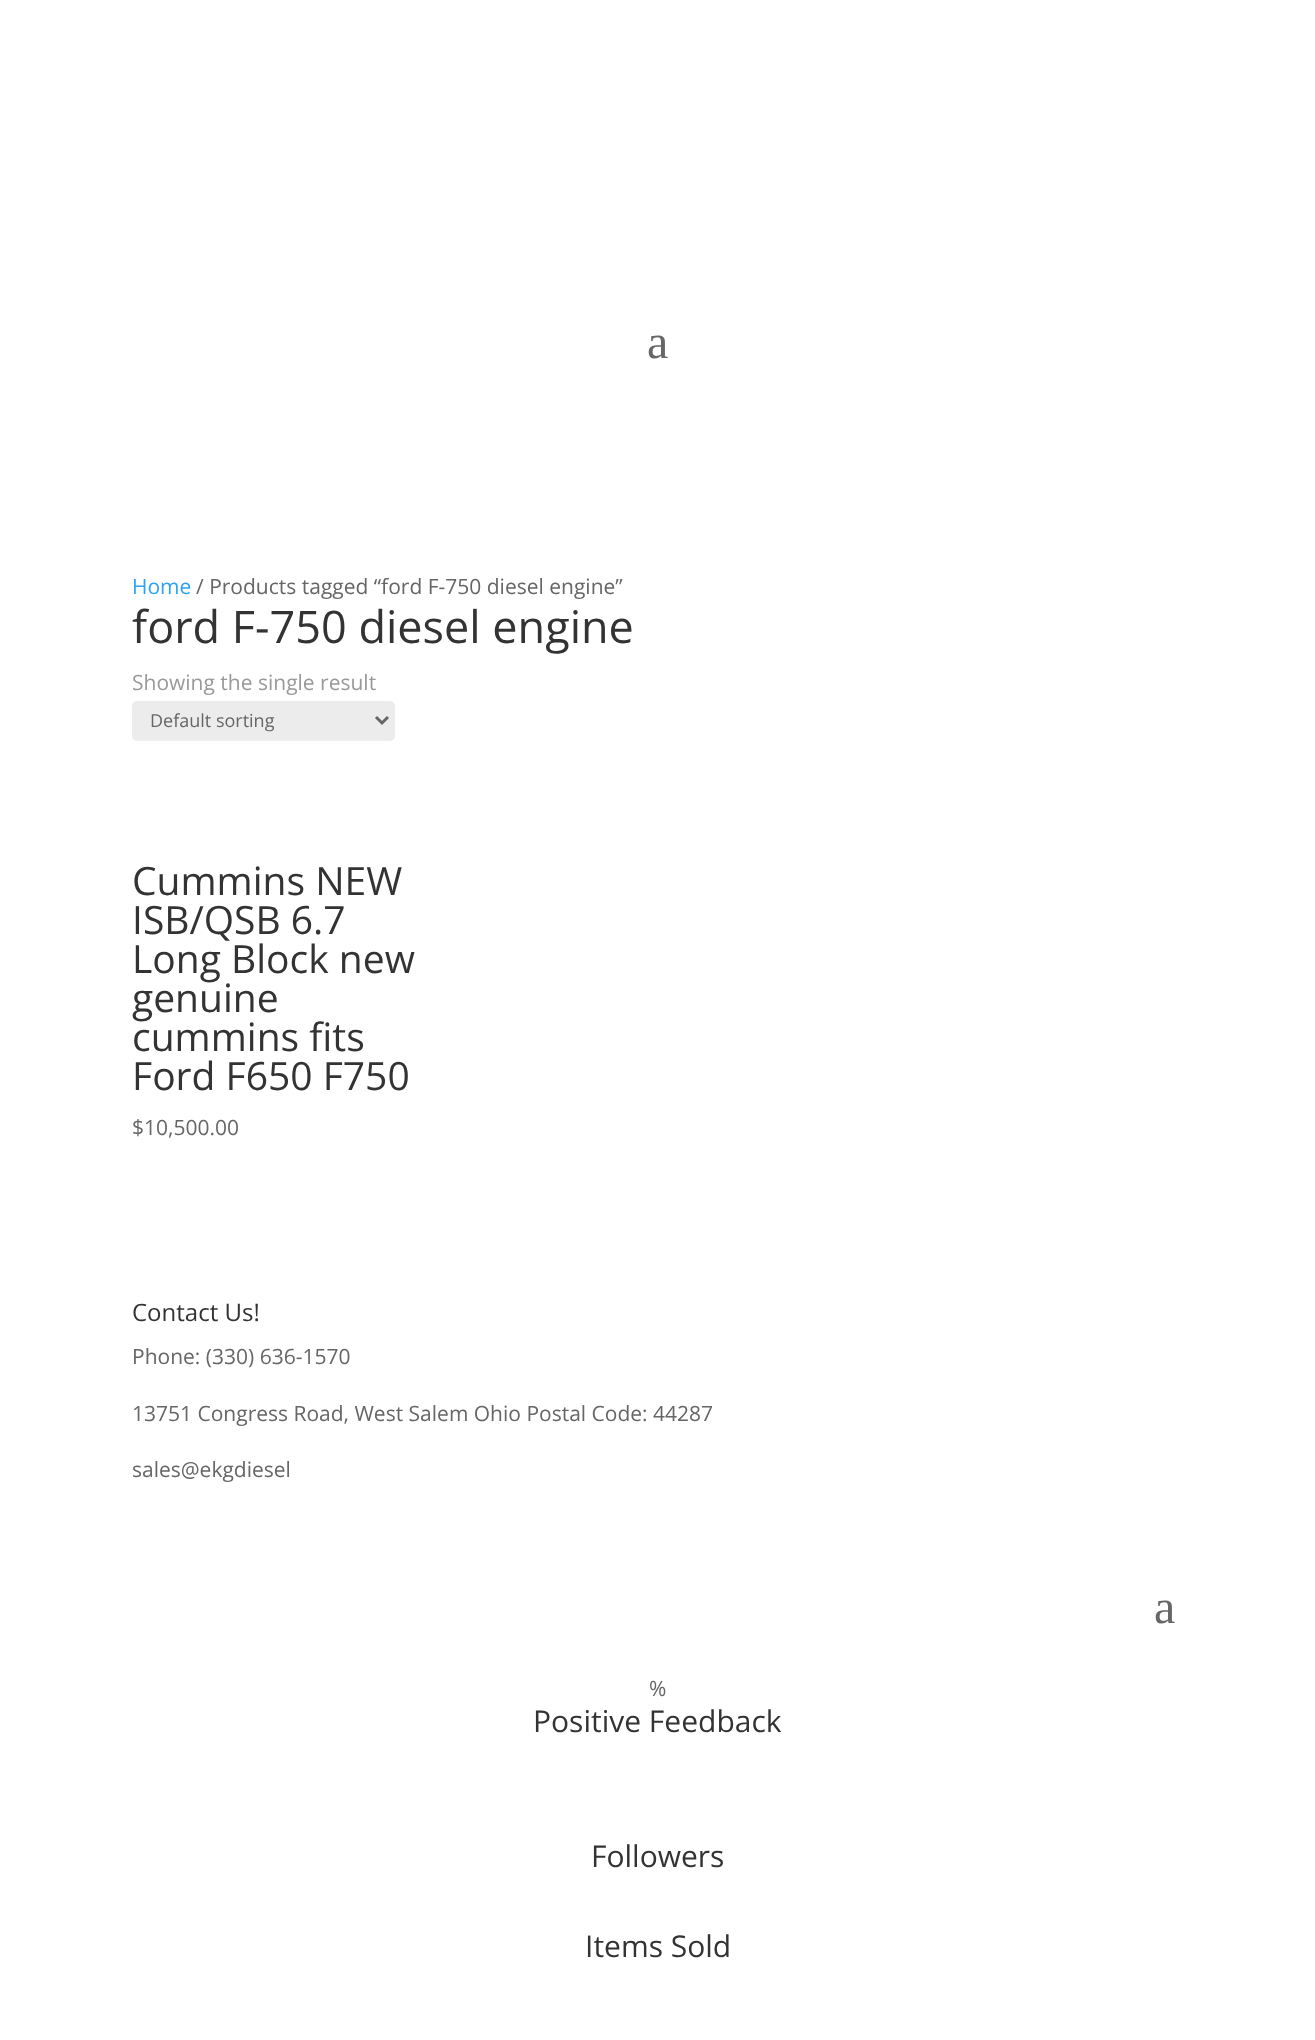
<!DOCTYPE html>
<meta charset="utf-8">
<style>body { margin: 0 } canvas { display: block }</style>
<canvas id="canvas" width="1315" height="2040"></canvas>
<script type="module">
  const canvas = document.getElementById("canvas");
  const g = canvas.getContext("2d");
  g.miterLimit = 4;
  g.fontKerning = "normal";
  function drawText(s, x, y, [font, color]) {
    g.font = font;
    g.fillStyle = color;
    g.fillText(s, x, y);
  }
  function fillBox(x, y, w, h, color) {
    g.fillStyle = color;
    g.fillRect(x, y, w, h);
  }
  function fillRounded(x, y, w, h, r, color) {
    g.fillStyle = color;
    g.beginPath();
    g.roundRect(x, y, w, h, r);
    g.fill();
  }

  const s1 = ["48px Liberation Serif", "#666666"];
  const s2 = ["21px Open Sans", "#2EA3F2"];
  const s3 = ["21px Open Sans", "#666666"];
  const s4 = ["45px Open Sans", "#333333"];
  const s5 = ["21px Open Sans", "#999999"];
  const s6 = ["18px Open Sans", "#666666"];
  const s7 = ["39px Open Sans", "#333333"];
  const s8 = ["24px Open Sans", "#333333"];
  const s9 = ["30px Open Sans", "#333333"];

  fillBox(0, 0, 1315, 2040, "#FFFFFF");
  drawText("a", 647, 358, s1);
  drawText("Home", 132, 594, s2);
  drawText("/ Products tagged “ford F-750 diesel engine”", 196, 594, s3);
  drawText("ford F-750 diesel engine", 132, 643, s4);
  drawText("Showing the single result", 132, 690, s5);
  fillRounded(132, 701, 263, 40, 5, "#ECECEC");
  g.beginPath();
  g.moveTo(376, 717);
  g.lineTo(382, 723);
  g.lineTo(388, 717);
  g.strokeStyle = "#666666";
  g.lineWidth = 3;
  g.stroke();
  drawText("Default sorting", 150, 727, s6);
  drawText("Cummins NEW", 132, 895, s7);
  drawText("ISB/QSB 6.7", 132, 934, s7);
  drawText("Long Block new", 132, 973, s7);
  drawText("genuine", 132, 1012, s7);
  drawText("cummins fits", 132, 1051, s7);
  drawText("Ford F650 F750", 132, 1090, s7);
  drawText("$10,500.00", 132, 1135, s3);
  drawText("Contact Us!", 132, 1321, s8);
  drawText("Phone: (330) 636-1570", 132, 1364, s3);
  drawText("13751 Congress Road, West Salem Ohio Postal Code: 44287", 132, 1421, s3);
  drawText("sales@ekgdiesel", 132, 1477, s3);
  drawText("a", 1154, 1623, s1);
  drawText("%", 649, 1696, s3);
  drawText("Positive Feedback", 533, 1732, s9);
  drawText("Followers", 591, 1867, s9);
  drawText("Items Sold", 585, 1957, s9);
</script>
